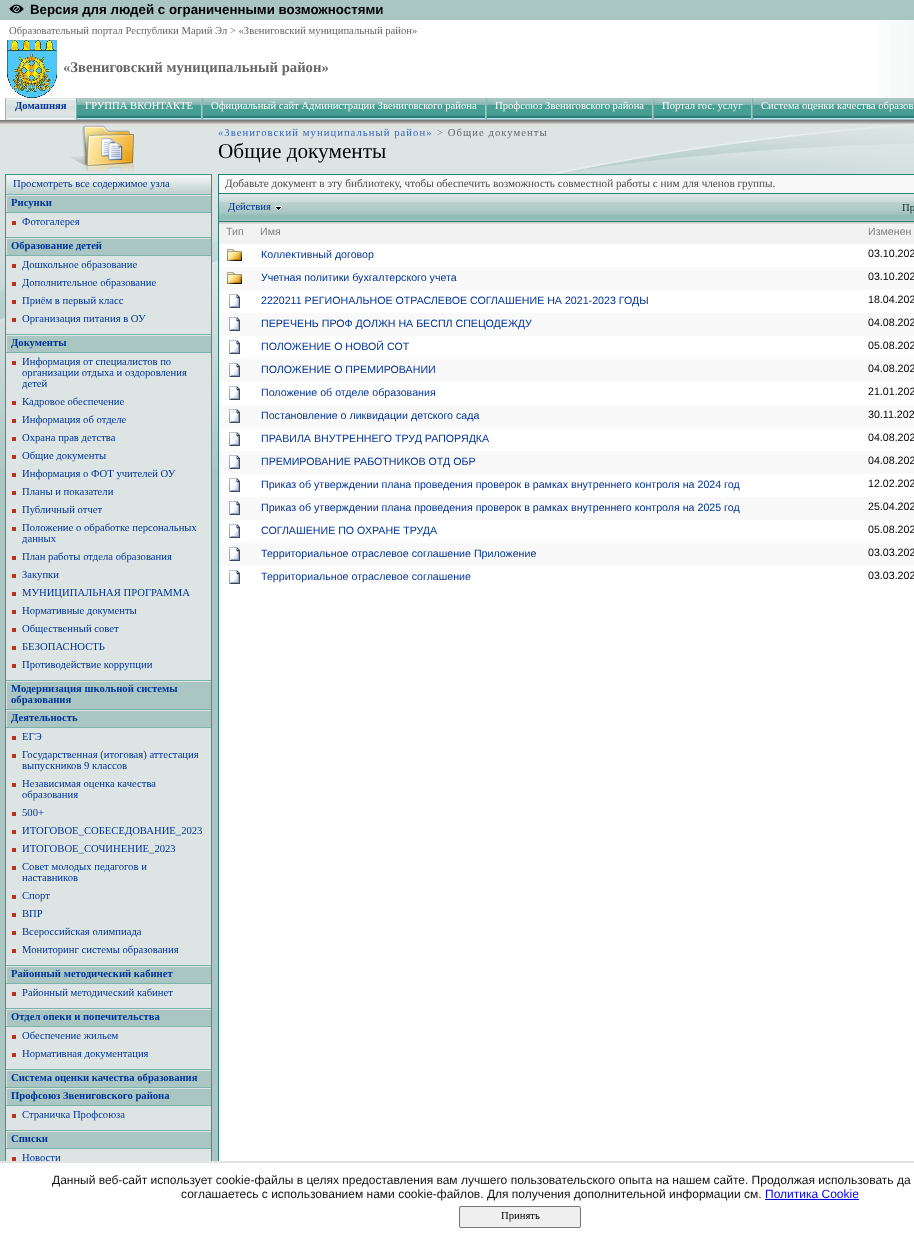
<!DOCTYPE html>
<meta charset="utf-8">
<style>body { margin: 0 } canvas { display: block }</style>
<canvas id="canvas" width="914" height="1238"></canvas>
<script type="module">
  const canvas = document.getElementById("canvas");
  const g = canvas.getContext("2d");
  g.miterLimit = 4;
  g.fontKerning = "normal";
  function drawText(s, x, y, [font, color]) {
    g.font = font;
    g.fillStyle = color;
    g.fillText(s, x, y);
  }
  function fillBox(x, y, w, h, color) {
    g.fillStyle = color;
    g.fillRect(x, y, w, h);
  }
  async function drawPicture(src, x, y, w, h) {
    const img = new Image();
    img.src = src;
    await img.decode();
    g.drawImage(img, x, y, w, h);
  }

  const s1 = ["bold 13.3px Liberation Sans", "#000000"];
  const s2 = ["10.65px Liberation Serif", "#666666"];
  const s3 = ["bold 14.7px Liberation Serif", "#666666"];
  const s4 = ["bold 10.65px Liberation Serif", "#003399"];
  const s5 = ["10.65px Liberation Serif", "#FFFFFF"];
  const s6 = ["10.65px Liberation Serif", "#3966BF"];
  const s7 = ["21.25px Liberation Serif", "#000000"];
  const s8 = ["10.65px Liberation Serif", "#003399"];
  const s9 = ["11.2px Liberation Serif", "#4C4C4C"];
  const s10 = ["10.65px Liberation Serif", "#09302B"];
  const s11 = ["10.65px Liberation Sans", "#808080"];
  const s12 = ["10.65px Liberation Sans", "#003399"];
  const s13 = ["10.65px Liberation Sans", "#000000"];
  const s14 = ["12px Liberation Sans", "#111111"];
  const s15 = ["12px Liberation Sans", "#0000EE"];
  const s16 = ["10.65px Liberation Serif", "#000000"];

  fillBox(0, 0, 914, 1238, "#FFFFFF");
  fillBox(0, 0, 914, 20, "#A9C6C3");
  await drawPicture("pic1.png", 9, 4, 15, 10);
  drawText("Версия для людей с ограниченными возможностями", 30, 14, s1);
  await drawPicture("pic2.png", 879, 20, 35, 78);
  drawText("Образовательный портал Республики Марий Эл > «Звениговский муниципальный район»", 9, 34, s2);
  await drawPicture("pic3.png", 7, 40, 50, 58);
  drawText("«Звениговский муниципальный район»", 63, 72, s3);
  fillBox(5, 98, 1, 22, "#91BCB7");
  await drawPicture("pic4.png", 7, 118, 68, 1);
  g.strokeStyle = "#DCE5E4";
  g.strokeRect(6.5, 98.5, 69, 21);
  fillBox(7, 117, 68, 1, "#DCE5E4");
  await drawPicture("pic5.png", 7, 99, 68, 18);
  drawText("Домашняя", 15, 109, s4);
  fillBox(77, 118, 124, 1, "#C2DCFF");
  fillBox(76, 98, 838, 1, "#A9C6C3");
  fillBox(201, 98, 1, 22, "#A9C6C3");
  fillBox(76, 119, 126, 1, "#91BCB7");
  fillBox(76, 98, 1, 22, "#7BB2AC");
  await drawPicture("pic6.png", 77, 99, 124, 19);
  drawText("ГРУППА ВКОНТАКТЕ", 85, 109, s5);
  fillBox(203, 118, 282, 1, "#C2DCFF");
  fillBox(485, 98, 1, 22, "#A9C6C3");
  fillBox(202, 119, 284, 1, "#91BCB7");
  fillBox(202, 98, 1, 22, "#7BB2AC");
  await drawPicture("pic7.png", 203, 99, 282, 19);
  drawText("Официальный сайт Администрации Звениговского района", 211, 109, s5);
  fillBox(487, 118, 165, 1, "#C2DCFF");
  fillBox(652, 98, 1, 22, "#A9C6C3");
  fillBox(486, 119, 167, 1, "#91BCB7");
  fillBox(486, 98, 1, 22, "#7BB2AC");
  await drawPicture("pic8.png", 487, 99, 165, 19);
  drawText("Профсоюз Звениговского района", 495, 109, s5);
  fillBox(654, 118, 97, 1, "#C2DCFF");
  fillBox(751, 98, 1, 22, "#A9C6C3");
  fillBox(653, 119, 261, 1, "#91BCB7");
  fillBox(653, 98, 1, 22, "#7BB2AC");
  await drawPicture("pic9.png", 654, 99, 97, 19);
  drawText("Портал гос. услуг", 662, 109, s5);
  fillBox(753, 118, 161, 1, "#C2DCFF");
  fillBox(752, 98, 1, 22, "#7BB2AC");
  await drawPicture("pic10.png", 753, 99, 161, 19);
  drawText("Система оценки качества образов", 761, 109, s5);
  fillBox(0, 126, 212, 48, "#DCE5E4");
  await drawPicture("pic11.png", 0, 120, 212, 6);
  await drawPicture("pic12.png", 70, 125, 64, 48);
  fillBox(212, 120, 6, 54, "#DCE5E4");
  await drawPicture("pic13.png", 212, 120, 6, 6);
  fillBox(218, 126, 332, 48, "#DCE5E4");
  await drawPicture("pic14.png", 218, 120, 696, 6);
  await drawPicture("pic15.png", 550, 124, 364, 50);
  g.letterSpacing = "1.05px";
  drawText("«Звениговский муниципальный район»", 218, 136, s6);
  drawText("> Общие документы", 437, 136, s2);
  g.letterSpacing = "0px";
  drawText("Общие документы", 218, 158, s7);
  fillBox(0, 469, 5, 692, "#A9C6C3");
  await drawPicture("pic16.png", 0, 174, 5, 295);
  fillBox(6, 213, 205, 948, "#DCE5E4");
  g.strokeStyle = "#3F938A";
  g.strokeRect(5.5, 174.5, 206, 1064);
  await drawPicture("pic17.png", 7, 175, 204, 19);
  fillBox(6, 175, 1, 19, "#DCE5E4");
  drawText("Просмотреть все содержимое узла", 13, 187, s8);
  fillBox(6, 194, 205, 1, "#7BB2AC");
  fillBox(7, 196, 204, 16, "#A9C6C3");
  fillBox(6, 195, 205, 1, "#DCE5E4");
  fillBox(6, 195, 1, 17, "#DCE5E4");
  drawText("Рисунки", 11, 206, s4);
  fillBox(6, 212, 205, 1, "#7BB2AC");
  fillBox(12, 221, 4, 4, "#BC321A");
  drawText("Фотогалерея", 22, 225, s8);
  fillBox(6, 237, 205, 1, "#7BB2AC");
  fillBox(7, 239, 204, 16, "#A9C6C3");
  drawText("Образование детей", 11, 249, s4);
  fillBox(6, 255, 205, 1, "#7BB2AC");
  fillBox(12, 264, 4, 4, "#BC321A");
  drawText("Дошкольное образование", 22, 268, s8);
  fillBox(12, 282, 4, 4, "#BC321A");
  drawText("Дополнительное образование", 22, 286, s8);
  fillBox(12, 300, 4, 4, "#BC321A");
  drawText("Приём в первый класс", 22, 304, s8);
  fillBox(12, 318, 4, 4, "#BC321A");
  drawText("Организация питания в ОУ", 22, 322, s8);
  fillBox(6, 334, 205, 1, "#7BB2AC");
  fillBox(7, 336, 204, 16, "#A9C6C3");
  drawText("Документы", 11, 346, s4);
  fillBox(6, 352, 205, 1, "#7BB2AC");
  fillBox(12, 361, 4, 4, "#BC321A");
  drawText("Информация от специалистов по", 22, 365, s8);
  drawText("организации отдыха и оздоровления", 22, 376, s8);
  drawText("детей", 22, 387, s8);
  fillBox(12, 401, 4, 4, "#BC321A");
  drawText("Кадровое обеспечение", 22, 405, s8);
  fillBox(12, 419, 4, 4, "#BC321A");
  drawText("Информация об отделе", 22, 423, s8);
  fillBox(12, 437, 4, 4, "#BC321A");
  drawText("Охрана прав детства", 22, 441, s8);
  fillBox(12, 455, 4, 4, "#BC321A");
  drawText("Общие документы", 22, 459, s8);
  fillBox(12, 473, 4, 4, "#BC321A");
  drawText("Информация о ФОТ учителей ОУ", 22, 477, s8);
  fillBox(12, 491, 4, 4, "#BC321A");
  drawText("Планы и показатели", 22, 495, s8);
  fillBox(12, 509, 4, 4, "#BC321A");
  drawText("Публичный отчет", 22, 513, s8);
  fillBox(12, 527, 4, 4, "#BC321A");
  drawText("Положение о обработке персональных", 22, 531, s8);
  drawText("данных", 22, 542, s8);
  fillBox(12, 556, 4, 4, "#BC321A");
  drawText("План работы отдела образования", 22, 560, s8);
  fillBox(12, 574, 4, 4, "#BC321A");
  drawText("Закупки", 22, 578, s8);
  fillBox(12, 592, 4, 4, "#BC321A");
  drawText("МУНИЦИПАЛЬНАЯ ПРОГРАММА", 22, 596, s8);
  fillBox(12, 610, 4, 4, "#BC321A");
  drawText("Нормативные документы", 22, 614, s8);
  fillBox(12, 628, 4, 4, "#BC321A");
  drawText("Общественный совет", 22, 632, s8);
  fillBox(12, 646, 4, 4, "#BC321A");
  drawText("БЕЗОПАСНОСТЬ", 22, 650, s8);
  fillBox(12, 664, 4, 4, "#BC321A");
  drawText("Противодействие коррупции", 22, 668, s8);
  fillBox(6, 680, 205, 1, "#7BB2AC");
  fillBox(7, 682, 204, 27, "#A9C6C3");
  drawText("Модернизация школьной системы", 11, 692, s4);
  drawText("образования", 11, 703, s4);
  fillBox(6, 709, 205, 1, "#7BB2AC");
  fillBox(7, 711, 204, 16, "#A9C6C3");
  drawText("Деятельность", 11, 721, s4);
  fillBox(6, 727, 205, 1, "#7BB2AC");
  fillBox(12, 736, 4, 4, "#BC321A");
  drawText("ЕГЭ", 22, 740, s8);
  fillBox(12, 754, 4, 4, "#BC321A");
  drawText("Государственная (итоговая) аттестация", 22, 758, s8);
  drawText("выпускников 9 классов", 22, 769, s8);
  fillBox(12, 783, 4, 4, "#BC321A");
  drawText("Независимая оценка качества", 22, 787, s8);
  drawText("образования", 22, 798, s8);
  fillBox(12, 812, 4, 4, "#BC321A");
  drawText("500+", 22, 816, s8);
  fillBox(12, 830, 4, 4, "#BC321A");
  drawText("ИТОГОВОЕ_СОБЕСЕДОВАНИЕ_2023", 22, 834, s8);
  fillBox(12, 848, 4, 4, "#BC321A");
  drawText("ИТОГОВОЕ_СОЧИНЕНИЕ_2023", 22, 852, s8);
  fillBox(12, 866, 4, 4, "#BC321A");
  drawText("Совет молодых педагогов и", 22, 870, s8);
  drawText("наставников", 22, 881, s8);
  fillBox(12, 895, 4, 4, "#BC321A");
  drawText("Спорт", 22, 899, s8);
  fillBox(12, 913, 4, 4, "#BC321A");
  drawText("ВПР", 22, 917, s8);
  fillBox(12, 931, 4, 4, "#BC321A");
  drawText("Всероссийская олимпиада", 22, 935, s8);
  fillBox(12, 949, 4, 4, "#BC321A");
  drawText("Мониторинг системы образования", 22, 953, s8);
  fillBox(6, 965, 205, 1, "#7BB2AC");
  fillBox(7, 967, 204, 16, "#A9C6C3");
  drawText("Районный методический кабинет", 11, 977, s4);
  fillBox(6, 983, 205, 1, "#7BB2AC");
  fillBox(12, 992, 4, 4, "#BC321A");
  drawText("Районный методический кабинет", 22, 996, s8);
  fillBox(6, 1008, 205, 1, "#7BB2AC");
  fillBox(7, 1010, 204, 16, "#A9C6C3");
  drawText("Отдел опеки и попечительства", 11, 1020, s4);
  fillBox(6, 1026, 205, 1, "#7BB2AC");
  fillBox(12, 1035, 4, 4, "#BC321A");
  drawText("Обеспечение жильем", 22, 1039, s8);
  fillBox(12, 1053, 4, 4, "#BC321A");
  drawText("Нормативная документация", 22, 1057, s8);
  fillBox(6, 1069, 205, 1, "#7BB2AC");
  fillBox(7, 1071, 204, 16, "#A9C6C3");
  drawText("Система оценки качества образования", 11, 1081, s4);
  fillBox(6, 1087, 205, 1, "#7BB2AC");
  fillBox(7, 1089, 204, 16, "#A9C6C3");
  drawText("Профсоюз Звениговского района", 11, 1099, s4);
  fillBox(6, 1105, 205, 1, "#7BB2AC");
  fillBox(12, 1114, 4, 4, "#BC321A");
  drawText("Страничка Профсоюза", 22, 1118, s8);
  fillBox(6, 1130, 205, 1, "#7BB2AC");
  fillBox(7, 1132, 204, 16, "#A9C6C3");
  drawText("Списки", 11, 1142, s4);
  fillBox(6, 1148, 205, 1, "#7BB2AC");
  fillBox(12, 1157, 4, 4, "#BC321A");
  drawText("Новости", 22, 1161, s8);
  fillBox(212, 469, 6, 692, "#A9C6C3");
  await drawPicture("pic18.png", 212, 174, 6, 295);
  fillBox(218, 174, 696, 1, "#2D7F75");
  fillBox(218, 174, 1, 987, "#2D7F75");
  fillBox(219, 175, 695, 18, "#F8F8F8");
  fillBox(219, 193, 695, 1, "#2D7F75");
  drawText("Добавьте документ в эту библиотеку, чтобы обеспечить возможность совместной работы с ним для членов группы.", 225, 187, s9);
  fillBox(219, 215, 695, 5, "#91BCB7");
  await drawPicture("pic19.png", 219, 194, 695, 21);
  fillBox(219, 221, 695, 1, "#2D7F75");
  fillBox(219, 220, 695, 1, "#A9C6C3");
  drawText("Действия", 228, 210, s8);
  await drawPicture("pic20.png", 275, 206, 7, 5);
  drawText("Пр", 902, 211, s10);
  fillBox(219, 224, 695, 20, "#F2F2F2");
  await drawPicture("pic21.png", 219, 222, 34, 2);
  drawText("Тип", 226, 235, s11);
  await drawPicture("pic22.png", 253, 222, 608, 2);
  drawText("Имя", 260, 235, s11);
  await drawPicture("pic23.png", 861, 222, 53, 2);
  drawText("Изменен", 868, 235, s11);
  await drawPicture("pic24.png", 227, 249, 15, 12);
  drawText("Коллективный договор", 261, 258, s12);
  drawText("03.10.202", 868, 257, s13);
  fillBox(219, 267, 695, 23, "#F9F9F9");
  await drawPicture("pic25.png", 227, 272, 15, 12);
  drawText("Учетная политики бухгалтерского учета", 261, 281, s12);
  drawText("03.10.202", 868, 280, s13);
  await drawPicture("pic26.png", 229, 294, 11, 14);
  drawText("2220211 РЕГИОНАЛЬНОЕ ОТРАСЛЕВОЕ СОГЛАШЕНИЕ НА 2021-2023 ГОДЫ", 261, 304, s12);
  drawText("18.04.202", 868, 303, s13);
  fillBox(219, 313, 695, 23, "#F9F9F9");
  await drawPicture("pic27.png", 229, 317, 11, 14);
  drawText("ПЕРЕЧЕНЬ ПРОФ ДОЛЖН НА БЕСПЛ СПЕЦОДЕЖДУ", 261, 327, s12);
  drawText("04.08.202", 868, 326, s13);
  await drawPicture("pic26.png", 229, 340, 11, 14);
  drawText("ПОЛОЖЕНИЕ О НОВОЙ СОТ", 261, 350, s12);
  drawText("05.08.202", 868, 349, s13);
  fillBox(219, 359, 695, 23, "#F9F9F9");
  await drawPicture("pic27.png", 229, 363, 11, 14);
  drawText("ПОЛОЖЕНИЕ О ПРЕМИРОВАНИИ", 261, 373, s12);
  drawText("04.08.202", 868, 372, s13);
  await drawPicture("pic26.png", 229, 386, 11, 14);
  drawText("Положение об отделе образования", 261, 396, s12);
  drawText("21.01.202", 868, 395, s13);
  fillBox(219, 405, 695, 23, "#F9F9F9");
  await drawPicture("pic27.png", 229, 409, 11, 14);
  drawText("Постановление о ликвидации детского сада", 261, 419, s12);
  drawText("30.11.202", 868, 418, s13);
  await drawPicture("pic26.png", 229, 432, 11, 14);
  drawText("ПРАВИЛА ВНУТРЕННЕГО ТРУД РАПОРЯДКА", 261, 442, s12);
  drawText("04.08.202", 868, 441, s13);
  fillBox(219, 451, 695, 23, "#F9F9F9");
  await drawPicture("pic27.png", 229, 455, 11, 14);
  drawText("ПРЕМИРОВАНИЕ РАБОТНИКОВ ОТД ОБР", 261, 465, s12);
  drawText("04.08.202", 868, 464, s13);
  await drawPicture("pic26.png", 229, 478, 11, 14);
  drawText("Приказ об утверждении плана проведения проверок в рамках внутреннего контроля на 2024 год", 261, 488, s12);
  drawText("12.02.202", 868, 487, s13);
  fillBox(219, 497, 695, 23, "#F9F9F9");
  await drawPicture("pic27.png", 229, 501, 11, 14);
  drawText("Приказ об утверждении плана проведения проверок в рамках внутреннего контроля на 2025 год", 261, 511, s12);
  drawText("25.04.202", 868, 510, s13);
  await drawPicture("pic26.png", 229, 524, 11, 14);
  drawText("СОГЛАШЕНИЕ ПО ОХРАНЕ ТРУДА", 261, 534, s12);
  drawText("05.08.202", 868, 533, s13);
  fillBox(219, 543, 695, 23, "#F9F9F9");
  await drawPicture("pic27.png", 229, 547, 11, 14);
  drawText("Территориальное отраслевое соглашение Приложение", 261, 557, s12);
  drawText("03.03.202", 868, 556, s13);
  await drawPicture("pic26.png", 229, 570, 11, 14);
  drawText("Территориальное отраслевое соглашение", 261, 580, s12);
  drawText("03.03.202", 868, 579, s13);
  fillBox(5, 1163, 207, 75, "#FFFFFF");
  fillBox(0, 1161, 914, 2, "#E3E3E3");
  drawText("Данный веб-сайт использует cookie-файлы в целях предоставления вам лучшего пользовательского опыта на нашем сайте. Продолжая использовать да", 52, 1184, s14);
  drawText("соглашаетесь с использованием нами cookie-файлов. Для получения дополнительной информации см.", 181, 1198, s14);
  drawText("Политика Cookie", 765, 1198, s15);
  fillBox(765, 1199, 94, 1, "#0000EE");
  g.fillStyle = "#EFEFEF";
  g.beginPath();
  g.roundRect(459.5, 1206.5, 121, 21, 1.5);
  g.fill();
  g.strokeStyle = "#767676";
  g.stroke();
  drawText("Принять", 501, 1219, s16);
</script>
